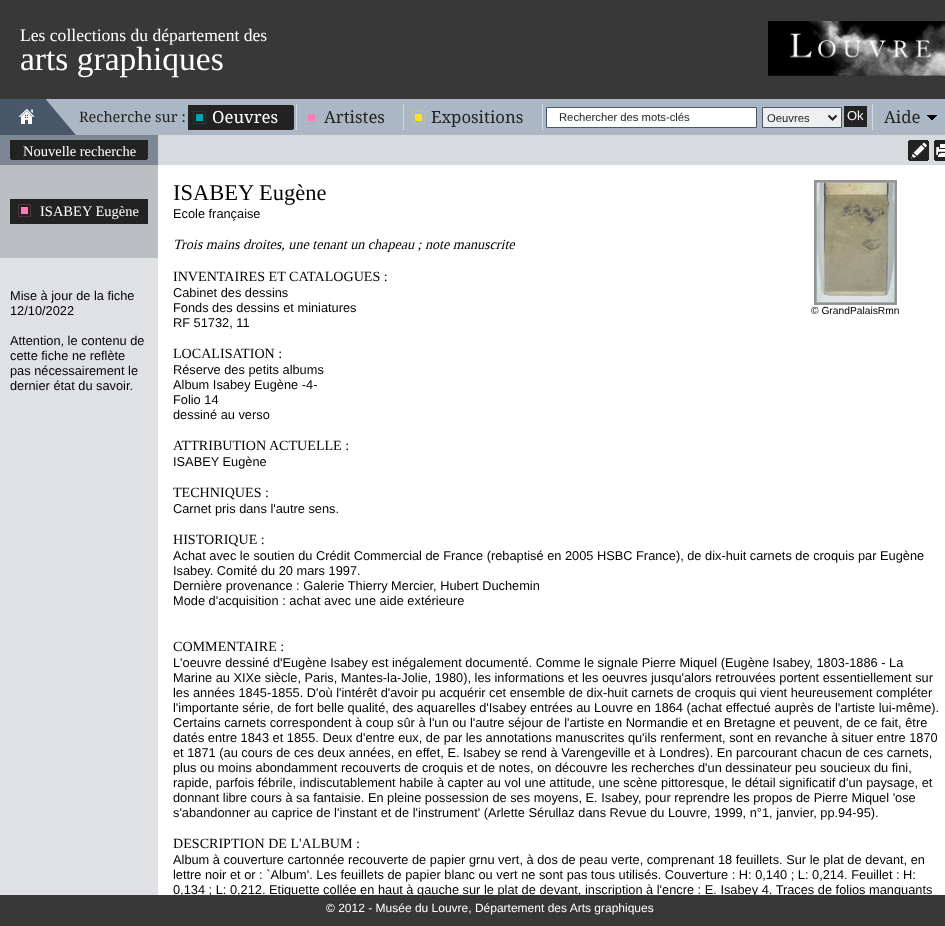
<!DOCTYPE html>
<meta charset="utf-8">
<style>body { margin: 0 } canvas { display: block }</style>
<canvas id="canvas" width="945" height="926"></canvas>
<script type="module">
  const canvas = document.getElementById("canvas");
  const g = canvas.getContext("2d");
  g.miterLimit = 4;
  g.fontKerning = "normal";
  function drawText(s, x, y, [font, color]) {
    g.font = font;
    g.fillStyle = color;
    g.fillText(s, x, y);
  }
  function fillBox(x, y, w, h, color) {
    g.fillStyle = color;
    g.fillRect(x, y, w, h);
  }
  async function drawPicture(src, x, y, w, h) {
    const img = new Image();
    img.src = src;
    await img.decode();
    g.drawImage(img, x, y, w, h);
  }

  const s1 = ["17.6px Tinos", "#FFFFFF"];
  const s2 = ["33.5px Tinos", "#FFFFFF"];
  const s3 = ["14.5px Droid Serif", "#222222"];
  const s4 = ["16.75px Droid Serif", "#FFFFFF"];
  const s5 = ["16.75px Droid Serif", "#222222"];
  const s6 = ["11.25px Liberation Sans", "#222222"];
  const s7 = ["13px Liberation Sans", "#FFFFFF"];
  const s8 = ["14.5px Tinos", "#FFFFFF"];
  const s9 = ["12.8px Liberation Sans", "#000000"];
  const s10 = ["22.5px Tinos", "#000000"];
  const s11 = ["italic 14.1px Tinos", "#000000"];
  const s12 = ["14.1px Tinos", "#000000"];
  const s13 = ["10.25px Liberation Sans", "#000000"];
  const s14 = ["12px Liberation Sans", "#FFFFFF"];

  fillBox(0, 0, 945, 926, "#FFFFFF");
  fillBox(0, 0, 945, 99, "#383838");
  drawText("Les collections du département des", 20, 41, s1);
  await drawPicture("pic1.png", 768, 21, 177, 55);
  drawText("arts graphiques", 20, 70, s2);
  fillBox(76, 99, 869, 36, "#ABB7C4");
  await drawPicture("pic2.png", 0, 99, 76, 36);
  await drawPicture("pic3.png", 18, 108, 17, 16);
  drawText("Recherche sur :", 79, 122, s3);
  fillBox(296, 104, 1, 26, "#D5DBE2");
  fillBox(188, 105, 105, 25, "#222222");
  await drawPicture("pic4.png", 293, 105, 1, 25);
  await drawPicture("pic5.png", 193, 111, 13, 13);
  drawText("Oeuvres", 212, 123, s4);
  fillBox(403, 104, 1, 26, "#D5DBE2");
  await drawPicture("pic6.png", 305, 111, 13, 13);
  drawText("Artistes", 324, 123, s5);
  fillBox(542, 104, 1, 26, "#D5DBE2");
  await drawPicture("pic7.png", 412, 111, 13, 13);
  drawText("Expositions", 431, 123, s5);
  g.fillStyle = "#FFFFFF";
  g.beginPath();
  g.rect(546.5, 107.5, 210, 20);
  g.fill();
  g.strokeStyle = "#485769";
  g.stroke();
  drawText("Rechercher des mots-clés", 559, 121, s6);
  g.fillStyle = "#EFEFEF";
  g.beginPath();
  g.rect(762.5, 107.5, 79, 20);
  g.fill();
  g.stroke();
  g.beginPath();
  g.moveTo(828.5, 115.5);
  g.lineTo(832.5, 119.5);
  g.lineTo(836.5, 115.5);
  g.strokeStyle = "#222222";
  g.lineWidth = 2;
  g.stroke();
  drawText("Oeuvres", 767, 122, s6);
  fillBox(844, 106, 23, 21, "#222222");
  drawText("Ok", 847, 120, s7);
  fillBox(872, 104, 1, 26, "#D5DBE2");
  drawText("Aide", 884, 123, s5);
  await drawPicture("pic8.png", 927, 115, 10, 5);
  fillBox(0, 258, 158, 637, "#DFE1E4");
  fillBox(0, 135, 158, 30, "#7D8894");
  fillBox(10, 140, 138, 18, "#222222");
  drawText("Nouvelle recherche", 23, 156, s8);
  await drawPicture("pic9.png", 10, 158, 138, 2);
  fillBox(0, 165, 158, 93, "#BBBFC4");
  fillBox(10, 199, 138, 25, "#222222");
  await drawPicture("pic10.png", 18, 204, 13, 13);
  drawText("ISABEY Eugène", 40, 216, s8);
  drawText("Mise à jour de la fiche", 10, 300, s9);
  drawText("12/10/2022", 10, 315, s9);
  drawText("Attention, le contenu de", 10, 345, s9);
  drawText("cette fiche ne reflète", 10, 360, s9);
  drawText("pas nécessairement le", 10, 375, s9);
  drawText("dernier état du savoir.", 10, 390, s9);
  fillBox(158, 135, 787, 30, "#D7DBDF");
  await drawPicture("pic11.png", 908, 140, 21, 21);
  await drawPicture("pic12.png", 934, 140, 11, 21);
  drawText("ISABEY Eugène", 173, 200, s10);
  drawText("Ecole française", 173, 218, s9);
  drawText("Trois mains droites, une tenant un chapeau ; note manuscrite", 173, 249, s11);
  drawText("INVENTAIRES ET CATALOGUES :", 173, 281, s12);
  drawText("Cabinet des dessins", 173, 297, s9);
  drawText("Fonds des dessins et miniatures", 173, 312, s9);
  await drawPicture("pic13.png", 814, 180, 83, 125);
  drawText("© GrandPalaisRmn", 811, 314, s13);
  drawText("RF 51732, 11", 173, 327, s9);
  drawText("LOCALISATION :", 173, 358, s12);
  drawText("Réserve des petits albums", 173, 374, s9);
  drawText("Album Isabey Eugène -4-", 173, 389, s9);
  drawText("Folio 14", 173, 404, s9);
  drawText("dessiné au verso", 173, 419, s9);
  drawText("ATTRIBUTION ACTUELLE :", 173, 450, s12);
  drawText("ISABEY Eugène", 173, 466, s9);
  drawText("TECHNIQUES :", 173, 497, s12);
  drawText("Carnet pris dans l'autre sens.", 173, 513, s9);
  drawText("HISTORIQUE :", 173, 544, s12);
  drawText("Achat avec le soutien du Crédit Commercial de France (rebaptisé en 2005 HSBC France), de dix-huit carnets de croquis par Eugène", 173, 560, s9);
  drawText("Isabey. Comité du 20 mars 1997.", 173, 575, s9);
  drawText("Dernière provenance : Galerie Thierry Mercier, Hubert Duchemin", 173, 590, s9);
  drawText("Mode d'acquisition : achat avec une aide extérieure", 173, 605, s9);
  drawText("COMMENTAIRE :", 173, 651, s12);
  drawText("L'oeuvre dessiné d'Eugène Isabey est inégalement documenté. Comme le signale Pierre Miquel (Eugène Isabey, 1803-1886 - La", 173, 667, s9);
  drawText("Marine au XIXe siècle, Paris, Mantes-la-Jolie, 1980), les informations et les oeuvres jusqu'alors retrouvées portent essentiellement sur", 173, 682, s9);
  drawText("les années 1845-1855. D'où l'intérêt d'avoir pu acquérir cet ensemble de dix-huit carnets de croquis qui vient heureusement compléter", 173, 697, s9);
  drawText("l'importante série, de fort belle qualité, des aquarelles d'Isabey entrées au Louvre en 1864 (achat effectué auprès de l'artiste lui-même).", 173, 712, s9);
  drawText("Certains carnets correspondent à coup sûr à l'un ou l'autre séjour de l'artiste en Normandie et en Bretagne et peuvent, de ce fait, être", 173, 727, s9);
  drawText("datés entre 1843 et 1855. Deux d'entre eux, de par les annotations manuscrites qu'ils renferment, sont en revanche à situer entre 1870", 173, 742, s9);
  drawText("et 1871 (au cours de ces deux années, en effet, E. Isabey se rend à Varengeville et à Londres). En parcourant chacun de ces carnets,", 173, 757, s9);
  drawText("plus ou moins abondamment recouverts de croquis et de notes, on découvre les recherches d'un dessinateur peu soucieux du fini,", 173, 772, s9);
  drawText("rapide, parfois fébrile, indiscutablement habile à capter au vol une attitude, une scène pittoresque, le détail significatif d'un paysage, et", 173, 787, s9);
  drawText("donnant libre cours à sa fantaisie. En pleine possession de ses moyens, E. Isabey, pour reprendre les propos de Pierre Miquel 'ose", 173, 802, s9);
  drawText("s'abandonner au caprice de l'instant et de l'instrument' (Arlette Sérullaz dans Revue du Louvre, 1999, n°1, janvier, pp.94-95).", 173, 817, s9);
  drawText("DESCRIPTION DE L'ALBUM :", 173, 848, s12);
  drawText("Album à couverture cartonnée recouverte de papier grnu vert, à dos de peau verte, comprenant 18 feuillets. Sur le plat de devant, en", 173, 864, s9);
  drawText("lettre noir et or : `Album'. Les feuillets de papier blanc ou vert ne sont pas tous utilisés. Couverture : H: 0,140 ; L: 0,214. Feuillet : H:", 173, 879, s9);
  g.save();
  g.beginPath();
  g.rect(158, 165, 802, 730);
  g.clip();
  drawText("0,134 ; L: 0,212. Etiquette collée en haut à gauche sur le plat de devant, inscription à l'encre : E. Isabey 4. Traces de folios manquants", 173, 894, s9);
  g.restore();
  fillBox(0, 895, 945, 31, "#383838");
  drawText("© 2012 - Musée du Louvre, Département des Arts graphiques", 326, 912, s14);
</script>
